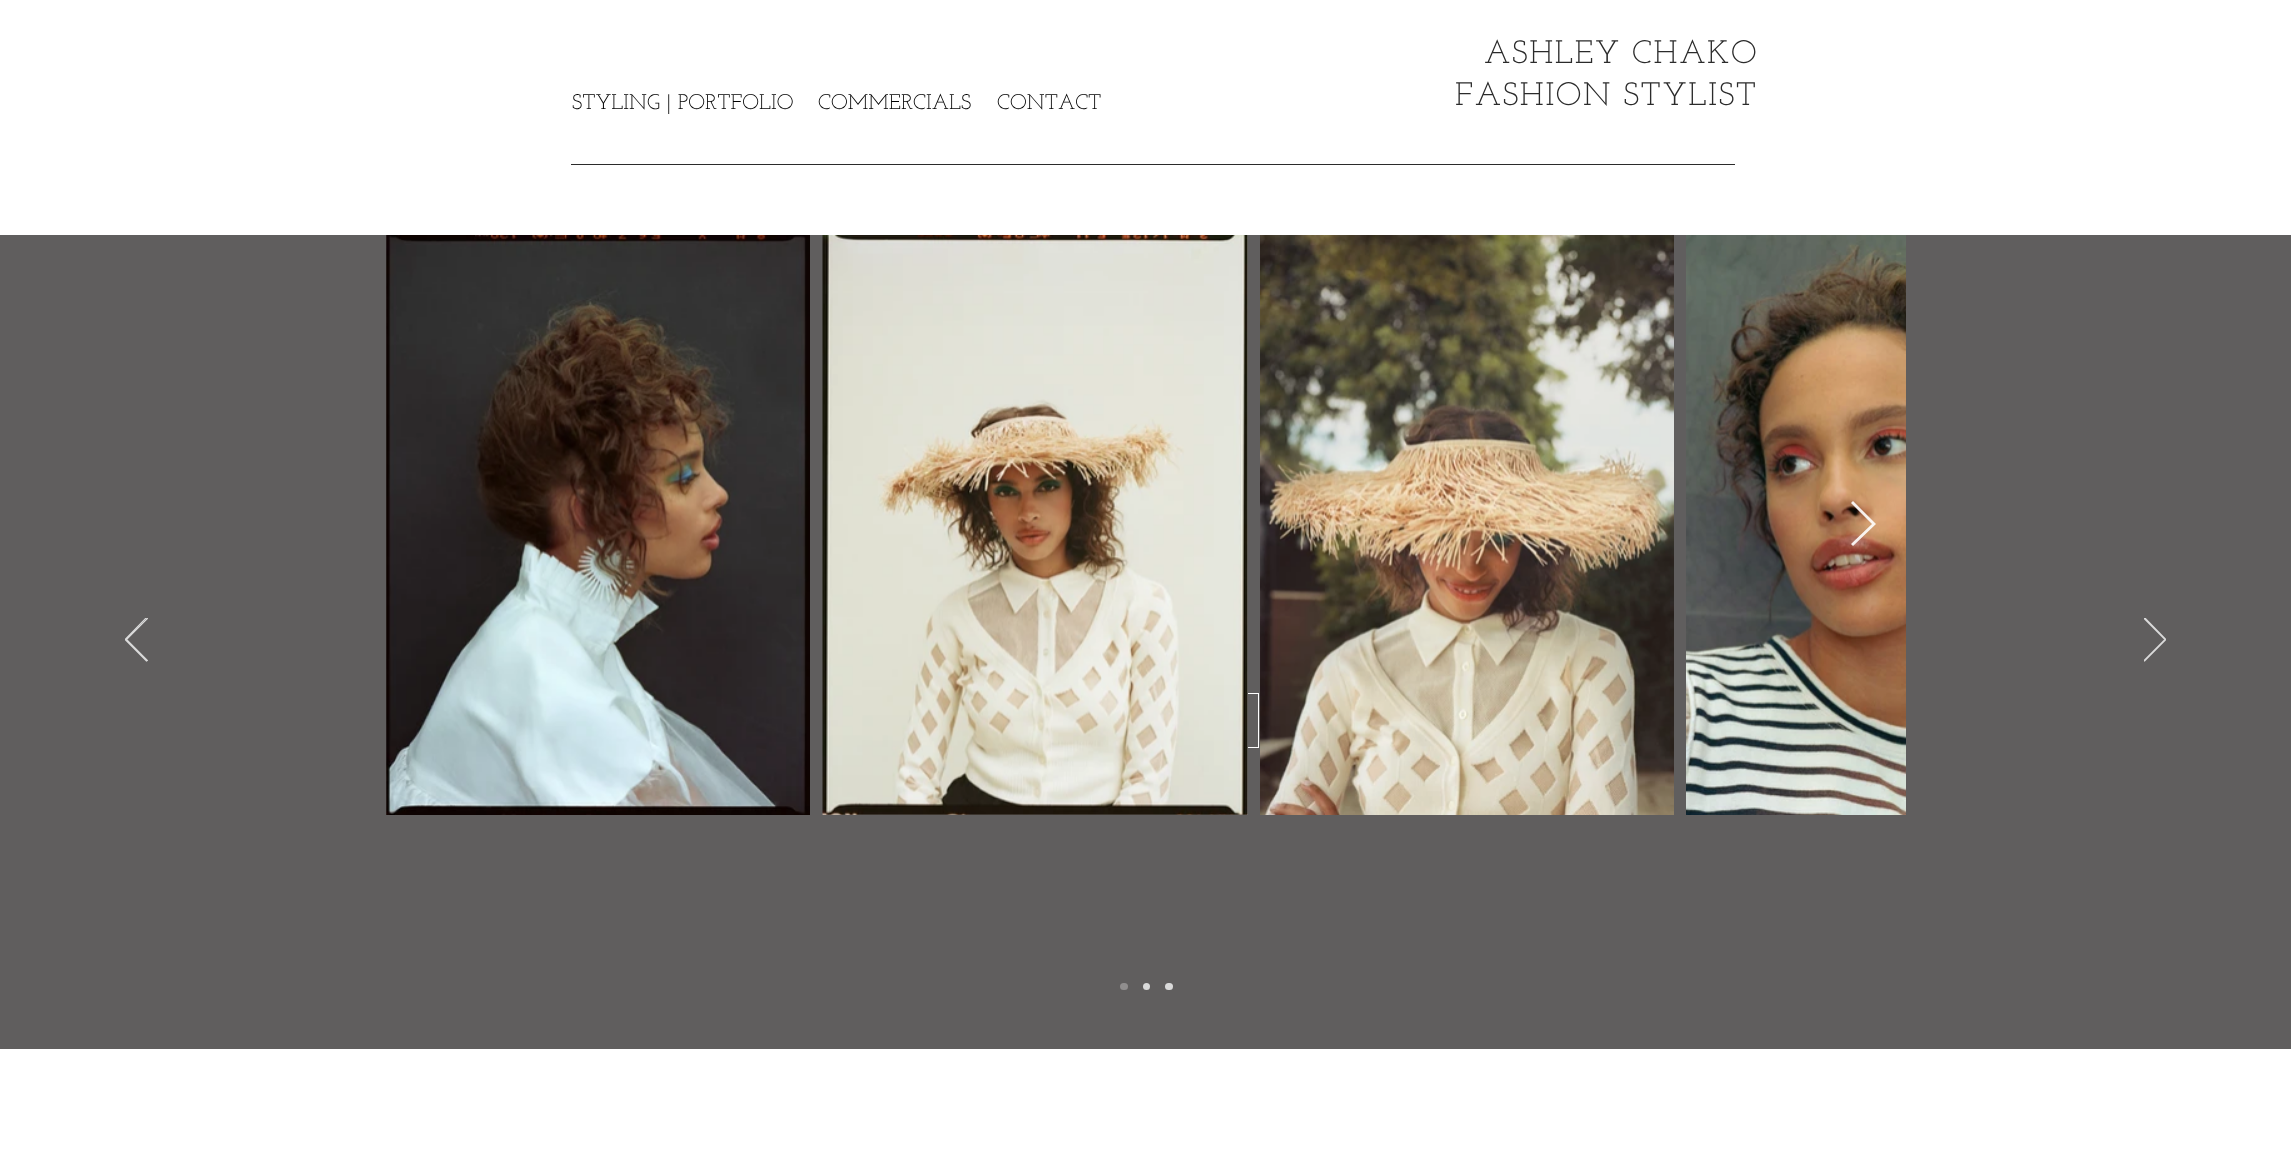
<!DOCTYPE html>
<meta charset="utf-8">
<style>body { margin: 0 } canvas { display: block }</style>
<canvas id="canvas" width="2291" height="1170"></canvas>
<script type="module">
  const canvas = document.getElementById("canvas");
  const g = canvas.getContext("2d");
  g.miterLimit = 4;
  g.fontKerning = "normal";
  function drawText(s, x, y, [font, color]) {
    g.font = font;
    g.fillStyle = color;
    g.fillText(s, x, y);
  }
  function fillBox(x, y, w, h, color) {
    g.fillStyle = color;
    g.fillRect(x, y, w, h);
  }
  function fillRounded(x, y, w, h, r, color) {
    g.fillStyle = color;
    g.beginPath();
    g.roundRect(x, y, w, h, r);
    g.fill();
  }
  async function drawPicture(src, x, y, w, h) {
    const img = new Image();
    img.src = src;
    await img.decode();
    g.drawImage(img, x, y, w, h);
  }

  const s1 = ["21.25px Josefin Slab", "#000000"];
  const s2 = ["32.5px Josefin Slab", "#2B2B2B"];

  fillBox(0, 0, 2291, 1170, "#FFFFFF");
  drawText("STYLING | PORTFOLIO", 572, 109, s1);
  drawText("COMMERCIALS", 818, 109, s1);
  drawText("CONTACT", 997, 109, s1);
  g.letterSpacing = "1.6px";
  drawText("ASHLEY CHAKO", 1484, 63, s2);
  drawText("FASHION STYLIST", 1455, 105, s2);
  fillBox(571, 164, 1164, 1, "#2B2B2B");
  fillBox(0, 235, 2291, 814, "#605E5E");
  g.strokeStyle = "#FFFFFF";
  g.strokeRect(1034.5, 693.5, 224, 54);
  g.save();
  g.beginPath();
  g.rect(125, 618, 23, 45);
  g.clip();
  g.beginPath();
  g.moveTo(146.5, 661);
  g.lineTo(125, 639.5);
  g.lineTo(146.5, 617.5);
  g.lineTo(147.5, 618.5);
  g.lineTo(126.5, 639.5);
  g.lineTo(147.5, 660.5);
  g.closePath();
  g.strokeStyle = "#DADADA";
  g.lineWidth = 1.1;
  g.stroke();
  g.restore();
  g.save();
  g.beginPath();
  g.rect(2144, 618, 22, 45);
  g.clip();
  g.beginPath();
  g.moveTo(2144.5, 661);
  g.lineTo(2166, 639.5);
  g.lineTo(2144.5, 617.5);
  g.lineTo(2144, 618.5);
  g.lineTo(2165, 639.5);
  g.lineTo(2144, 660.5);
  g.closePath();
  g.strokeStyle = "#DADADA";
  g.lineWidth = 1.1;
  g.stroke();
  g.restore();
  fillRounded(1120, 983, 8, 7, 3.5, "#908E8E");
  g.fillStyle = "#DADADA";
  g.beginPath();
  g.arc(1146.5, 986.5, 3.5, 0, Math.PI * 2);
  g.fill();
  fillRounded(1165, 983, 8, 7, 3.5, "#DADADA");
  await drawPicture("pic1.png", 386, 235, 424, 580);
  fillBox(823, 235, 425, 580, "#979595");
  await drawPicture("pic2.png", 822, 235, 426, 580);
  await drawPicture("pic3.png", 1260, 235, 414, 580);
  await drawPicture("pic4.png", 1686, 235, 220, 580);
  g.fillStyle = "rgba(255, 255, 255, 0.9)";
  g.beginPath();
  g.moveTo(1851, 503);
  g.lineTo(1853, 501);
  g.lineTo(1876, 524);
  g.lineTo(1853, 546);
  g.lineTo(1851, 544);
  g.lineTo(1872, 524);
  g.closePath();
  g.fill();
</script>
